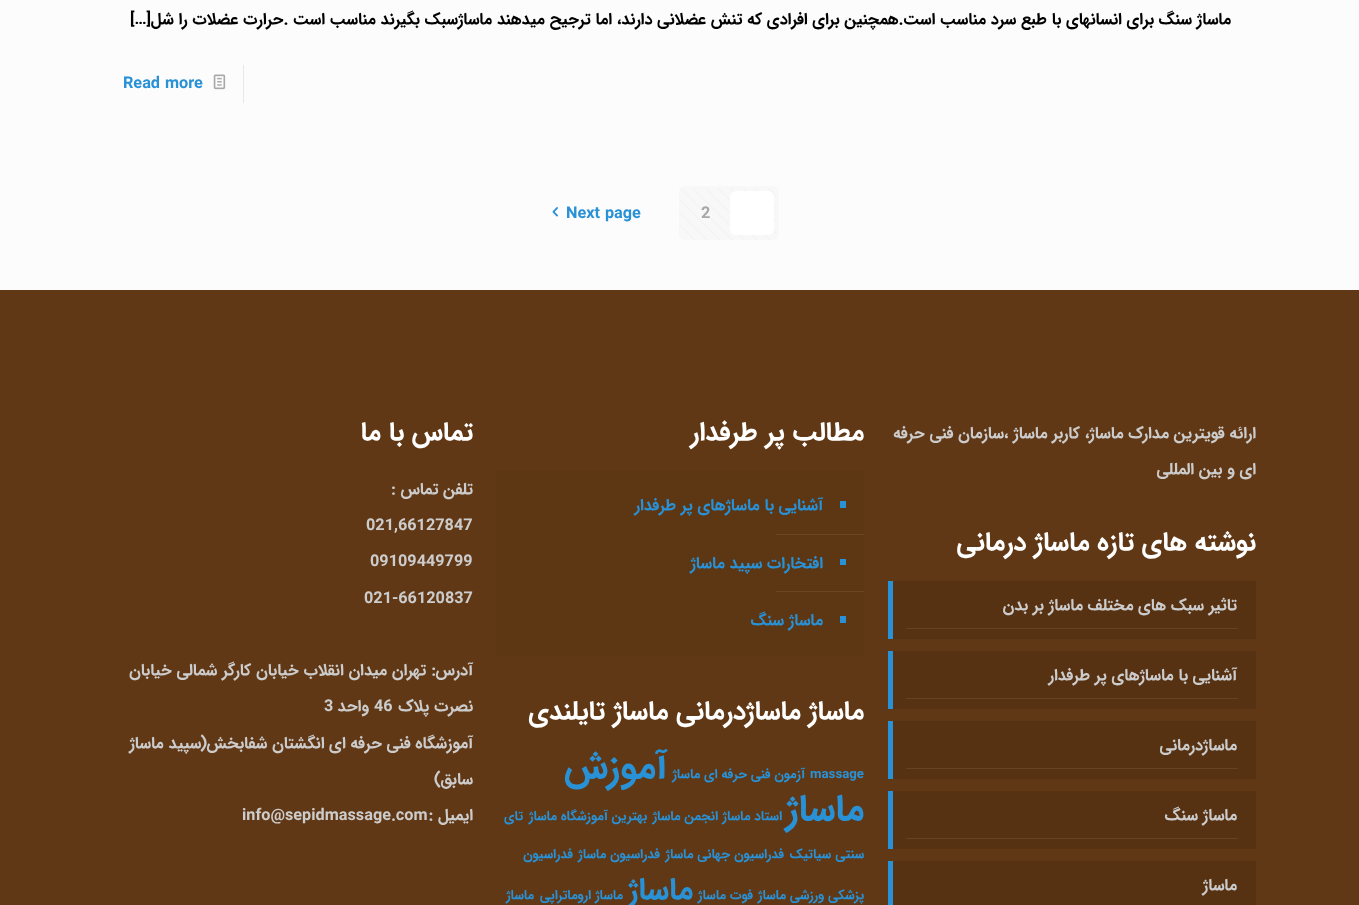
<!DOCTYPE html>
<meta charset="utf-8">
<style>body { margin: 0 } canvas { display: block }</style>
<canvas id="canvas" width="1359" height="905"></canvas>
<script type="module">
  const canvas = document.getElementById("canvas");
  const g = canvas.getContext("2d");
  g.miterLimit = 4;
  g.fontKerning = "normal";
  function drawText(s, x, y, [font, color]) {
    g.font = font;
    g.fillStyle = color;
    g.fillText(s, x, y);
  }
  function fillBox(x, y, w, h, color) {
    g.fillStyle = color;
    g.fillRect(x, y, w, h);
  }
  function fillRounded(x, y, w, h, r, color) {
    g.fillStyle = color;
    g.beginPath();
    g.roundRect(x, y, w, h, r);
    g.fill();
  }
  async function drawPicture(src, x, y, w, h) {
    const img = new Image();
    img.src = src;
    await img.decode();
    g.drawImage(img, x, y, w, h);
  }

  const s1 = ["bold 16.25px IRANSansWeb", "#000000"];
  const s2 = ["bold 16.25px IRANSansWeb", "#2991D6"];
  const s3 = ["bold 16.25px IRANSansWeb", "#A8A8A8"];
  const s4 = ["bold 16.25px IRANSansWeb", "#CCCCCC"];
  const s5 = ["bold 26.25px IRANSansWeb", "#FFFFFF"];
  const s6 = ["bold 13.25px IRANSansWeb", "#2991D6"];
  const s7 = ["bold 37px IRANSansWeb", "#2991D6"];
  const s8 = ["bold 31px IRANSansWeb", "#2991D6"];

  fillBox(0, 0, 1359, 905, "#FCFCFC");
  g.direction = "rtl";
  drawText("ماساژ سنگ برای انسانهای با طبع سرد مناسب است.همچنین برای افرادی که تنش عضلانی دارند، اما ترجیح میدهند ماساژسبک بگیرند مناسب است .حرارت عضلات را شل", 1231, 24, s1);
  g.direction = "ltr";
  drawText("[…]", 130, 24, s1);
  fillBox(243, 65, 1, 38, "#E8E8E8");
  await drawPicture("pic1.png", 213, 74, 13, 16);
  drawText("Read more", 123, 88, s2);
  fillRounded(679, 186, 100, 54, 6, "#F8F8F8");
  await drawPicture("pic2.png", 679, 188, 97, 52);
  fillRounded(730, 191, 44, 44, 6, "#FFFFFF");
  drawText("2", 701, 218, s3);
  drawText("Next page", 566, 218, s2);
  await drawPicture("pic3.png", 552, 207, 6, 10);
  fillBox(0, 290, 1359, 615, "#603815");
  g.direction = "rtl";
  drawText("ارائه قویترین مدارک ماساژ، کاربر ماساژ ،سازمان فنی حرفه", 1256, 438, s4);
  drawText("ای و بین المللی", 1256, 474, s4);
  drawText("نوشته های تازه ماساژ درمانی", 1256, 550, s5);
  fillBox(893, 581, 363, 58, "#563213");
  fillBox(906, 628, 332, 1, "#644226");
  drawText("تاثیر سبک های مختلف ماساژ بر بدن", 1237, 610, s4);
  fillBox(888, 581, 5, 58, "#2991D6");
  fillBox(893, 651, 363, 58, "#563213");
  fillBox(906, 698, 332, 1, "#644226");
  drawText("آشنایی با ماساژهای پر طرفدار", 1237, 680, s4);
  fillBox(888, 651, 5, 58, "#2991D6");
  fillBox(893, 721, 363, 58, "#563213");
  fillBox(906, 768, 332, 1, "#644226");
  drawText("ماساژدرمانی", 1237, 750, s4);
  fillBox(888, 721, 5, 58, "#2991D6");
  fillBox(893, 791, 363, 58, "#563213");
  fillBox(906, 838, 332, 1, "#644226");
  drawText("ماساژ سنگ", 1237, 820, s4);
  fillBox(888, 791, 5, 58, "#2991D6");
  fillBox(893, 861, 363, 44, "#563213");
  drawText("ماساژ", 1237, 890, s4);
  fillBox(888, 861, 5, 44, "#2991D6");
  drawText("مطالب پر طرفدار", 864, 440, s5);
  fillBox(496, 471, 368, 185, "#5D3614");
  fillBox(840, 501, 6, 7, "#2991D6");
  drawText("آشنایی با ماساژهای پر طرفدار", 823, 510, s2);
  fillBox(776, 534, 88, 1, "#6A4627");
  fillBox(840, 559, 6, 6, "#2991D6");
  drawText("افتخارات سپید ماساژ", 823, 568, s2);
  fillBox(776, 591, 88, 1, "#6A4627");
  fillBox(840, 616, 6, 7, "#2991D6");
  drawText("ماساژ سنگ", 823, 625, s2);
  drawText("ماساژ ماساژدرمانی ماساژ تایلندی", 864, 719, s5);
  g.direction = "ltr";
  drawText("massage", 810, 778, s6);
  g.direction = "rtl";
  drawText("آزمون فنی حرفه ای ماساژ", 805, 778, s6);
  drawText("آموزش", 667, 778, s7);
  drawText("ماساژ", 864, 820, s7);
  drawText("استاد ماساژ", 782, 820, s6);
  drawText("انجمن ماساژ", 718, 820, s6);
  drawText("بهترین آموزشگاه ماساژ", 647, 820, s6);
  drawText("تای", 523, 820, s6);
  drawText("سنتی", 864, 858, s6);
  drawText("سیاتیک", 831, 858, s6);
  drawText("فدراسیون جهانی ماساژ", 784, 858, s6);
  drawText("فدراسیون ماساژ", 660, 858, s6);
  drawText("فدراسیون", 573, 858, s6);
  drawText("پزشکی ورزشی ماساژ", 864, 899, s6);
  drawText("فوت ماساژ", 753, 899, s6);
  drawText("ماساژ", 693, 899, s8);
  drawText("ماساژ اروماتراپی", 623, 899, s6);
  drawText("ماساژ", 534, 899, s6);
  drawText("تماس با ما", 473, 440, s5);
  drawText("تلفن تماس :", 473, 494, s4);
  g.direction = "ltr";
  drawText("021,66127847", 366, 530, s4);
  drawText("09109449799", 370, 566, s4);
  drawText("021-66120837", 364, 603, s4);
  g.direction = "rtl";
  drawText("آدرس: تهران میدان انقلاب خیابان کارگر شمالی خیابان", 473, 675, s4);
  drawText("نصرت پلاک", 473, 711, s4);
  g.direction = "ltr";
  drawText("46", 374, 711, s4);
  g.direction = "rtl";
  drawText("واحد", 369, 711, s4);
  g.direction = "ltr";
  drawText("3", 324, 711, s4);
  g.direction = "rtl";
  drawText("آموزشگاه فنی حرفه ای انگشتان شفابخش(سپید ماساژ", 473, 748, s4);
  drawText("سابق)", 473, 784, s4);
  drawText("ایمیل :", 473, 820, s4);
  g.direction = "ltr";
  drawText("info@sepidmassage.com", 242, 820, s4);
</script>
